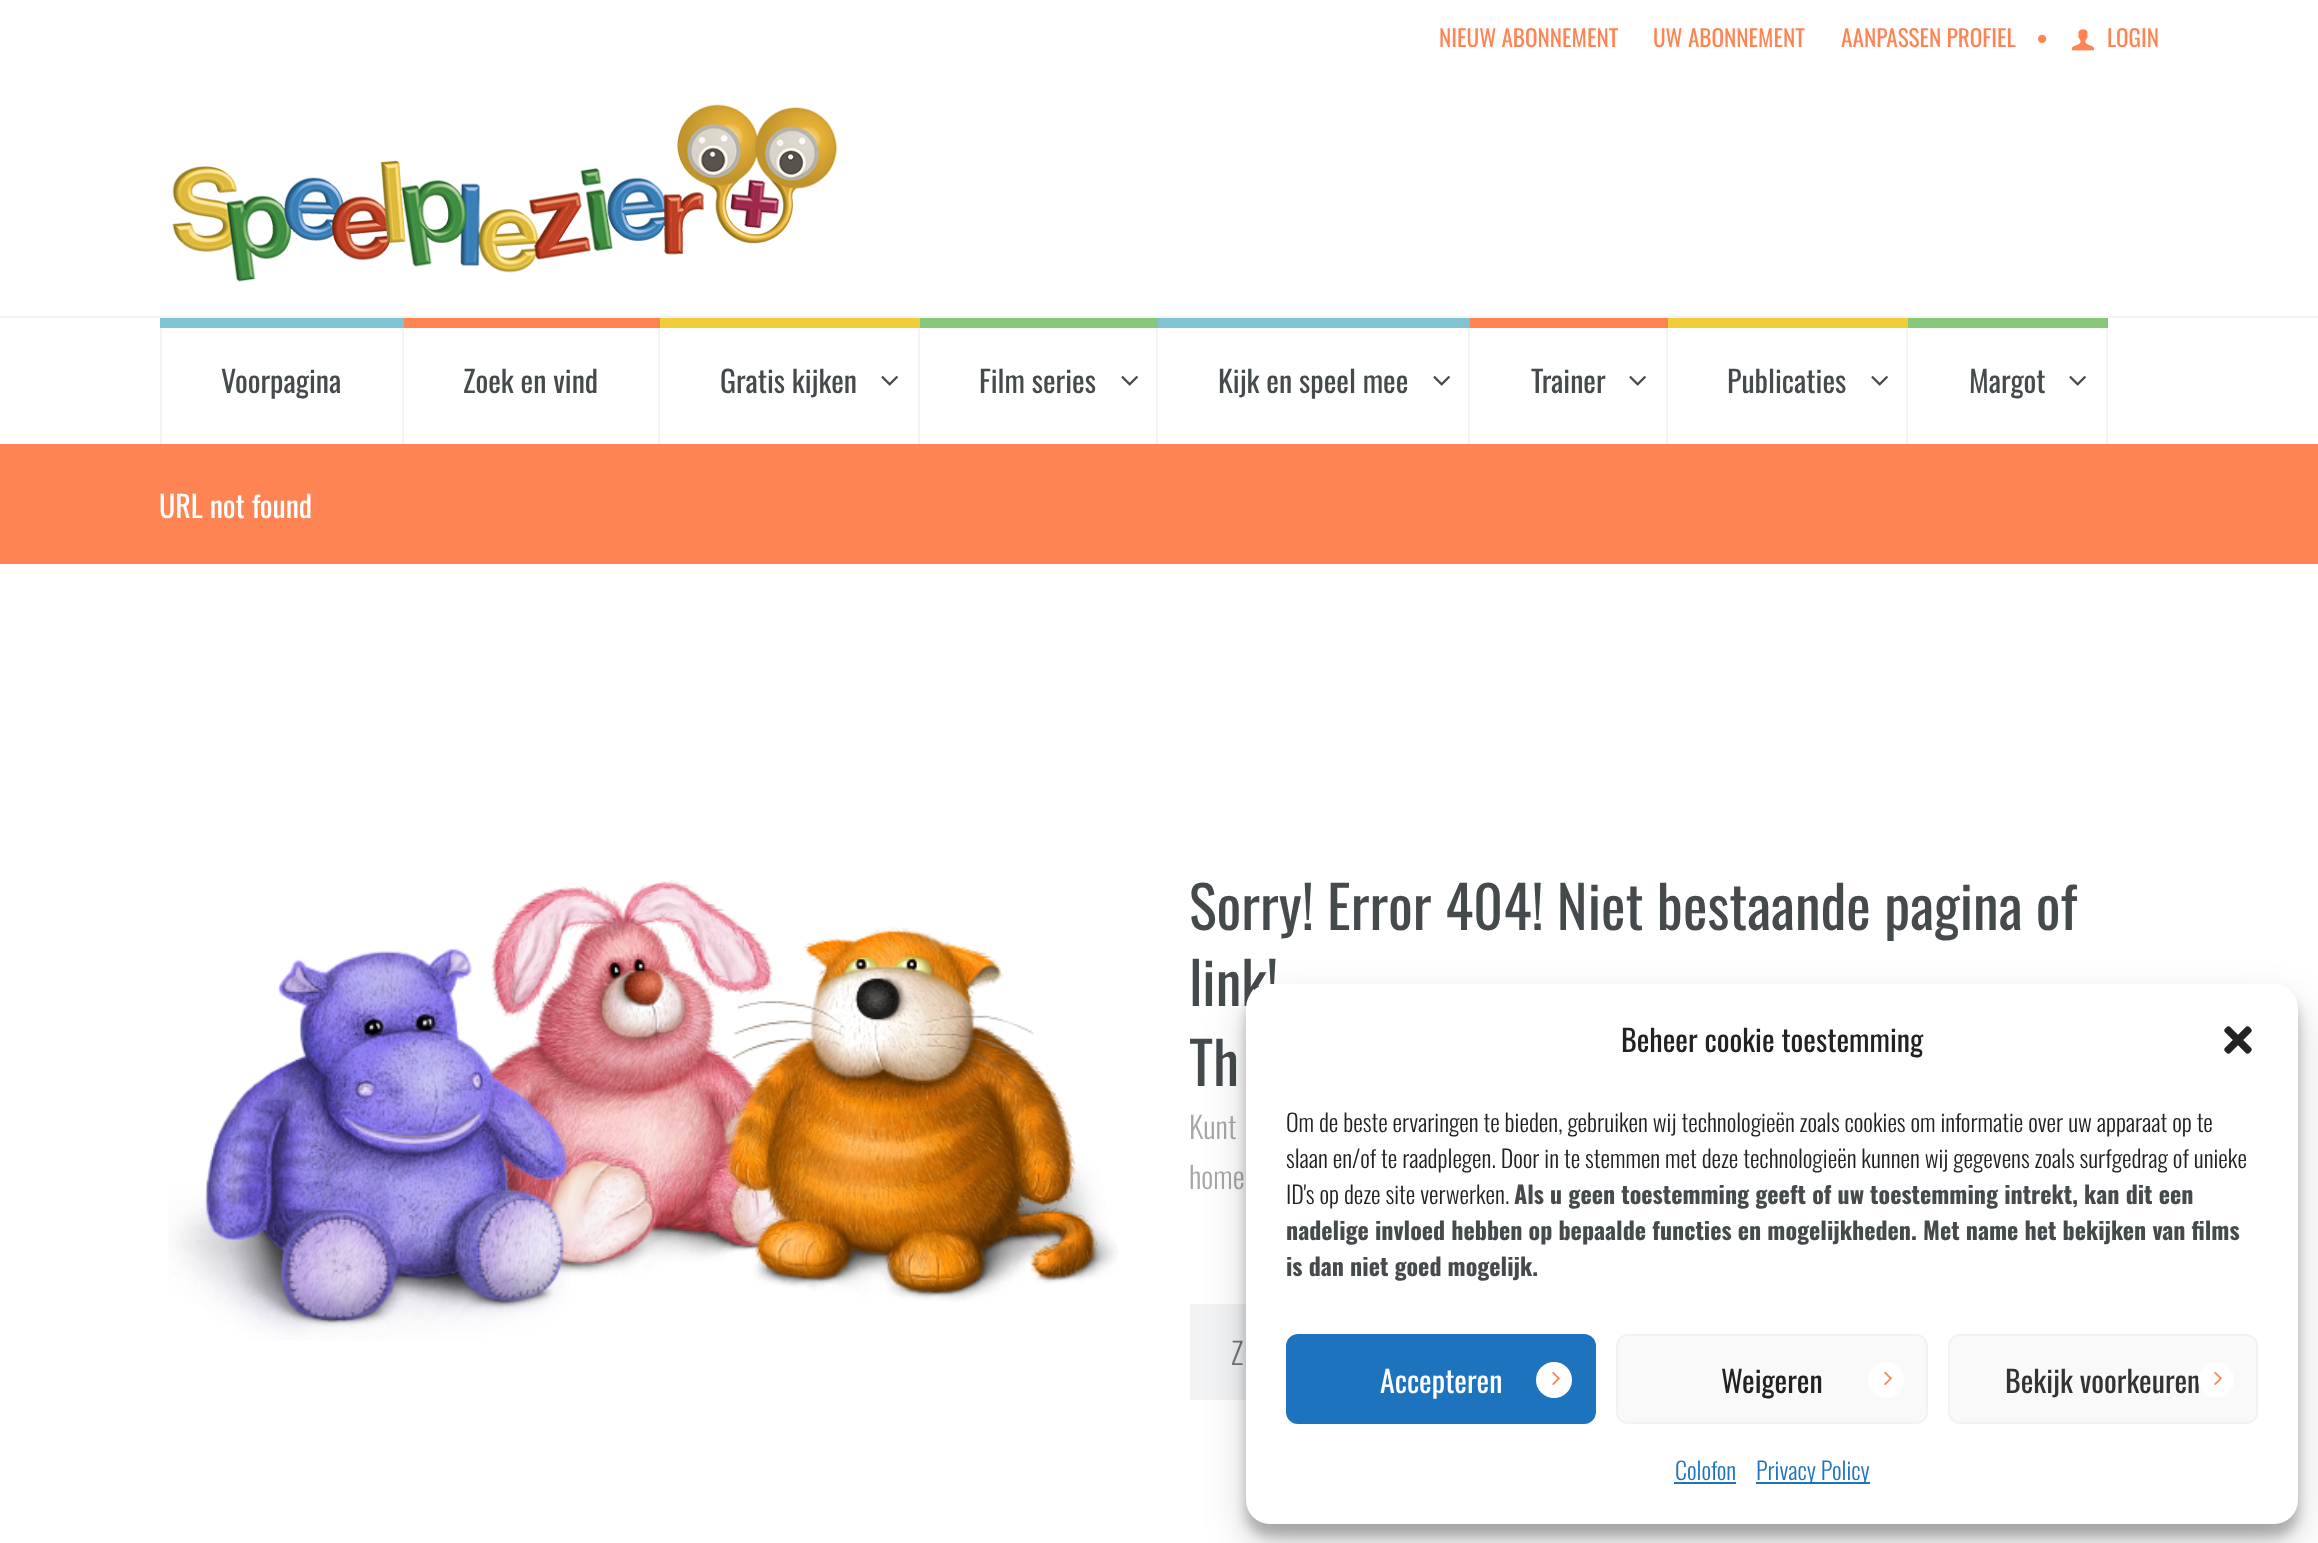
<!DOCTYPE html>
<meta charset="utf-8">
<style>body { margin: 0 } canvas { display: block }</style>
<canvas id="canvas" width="2318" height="1543"></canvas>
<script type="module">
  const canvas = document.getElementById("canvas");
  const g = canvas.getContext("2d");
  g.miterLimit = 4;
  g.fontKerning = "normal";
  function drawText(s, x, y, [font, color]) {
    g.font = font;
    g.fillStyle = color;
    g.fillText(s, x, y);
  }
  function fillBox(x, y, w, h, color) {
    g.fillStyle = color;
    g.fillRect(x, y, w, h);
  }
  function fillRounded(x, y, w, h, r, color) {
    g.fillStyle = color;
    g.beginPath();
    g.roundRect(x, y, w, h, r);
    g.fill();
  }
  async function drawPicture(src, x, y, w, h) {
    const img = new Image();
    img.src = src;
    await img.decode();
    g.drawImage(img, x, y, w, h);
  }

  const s1 = ["23.25px Oswald", "#FF8454"];
  const s2 = ["30px Oswald", "#454A4C"];
  const s3 = ["30px Oswald", "#FFFFFF"];
  const s4 = ["58.3px Oswald", "#454A4C"];
  const s5 = ["300 30px Oswald", "#A6A6A6"];
  const s6 = ["300 30px Oswald", "#757575"];
  const s7 = ["30px Oswald", "#222222"];
  const s8 = ["300 24px Oswald", "#222222"];
  const s9 = ["bold 24px Oswald", "#454A4C"];
  const s10 = ["30px Oswald", "#333333"];
  const s11 = ["300 24px Oswald", "#1E73BE"];

  fillBox(0, 0, 2318, 1543, "#FFFFFF");
  drawText("NIEUW ABONNEMENT", 1439, 47, s1);
  drawText("UW ABONNEMENT", 1653, 47, s1);
  drawText("AANPASSEN PROFIEL", 1841, 47, s1);
  await drawPicture("pic1.png", 2038, 34, 9, 9);
  await drawPicture("pic2.png", 2072, 29, 22, 22);
  drawText("LOGIN", 2107, 47, s1);
  fillBox(0, 316, 2318, 2, "#F4F4F4");
  await drawPicture("pic3.png", 172, 104, 666, 178);
  fillBox(160, 318, 244, 10, "#80C3D2");
  fillBox(402, 328, 2, 116, "#F4F4F4");
  fillBox(160, 328, 2, 116, "#F4F4F4");
  drawText("Voorpagina", 221, 393, s2);
  fillBox(404, 318, 256, 10, "#FF8454");
  fillBox(658, 328, 2, 116, "#F4F4F4");
  drawText("Zoek en vind", 463, 393, s2);
  fillBox(660, 318, 260, 10, "#F0CD3A");
  fillBox(918, 328, 2, 116, "#F4F4F4");
  drawText("Gratis kijken", 720, 393, s2);
  await drawPicture("pic4.png", 881, 376, 17, 10);
  fillBox(920, 318, 238, 10, "#88C87B");
  fillBox(1156, 328, 2, 116, "#F4F4F4");
  drawText("Film series", 979, 393, s2);
  await drawPicture("pic4.png", 1121, 376, 17, 10);
  fillBox(1158, 318, 312, 10, "#80C3D2");
  fillBox(1468, 328, 2, 116, "#F4F4F4");
  drawText("Kijk en speel mee", 1218, 393, s2);
  await drawPicture("pic4.png", 1433, 376, 17, 10);
  fillBox(1470, 318, 198, 10, "#FF8454");
  fillBox(1666, 328, 2, 116, "#F4F4F4");
  drawText("Trainer", 1531, 393, s2);
  await drawPicture("pic4.png", 1629, 376, 17, 10);
  fillBox(1668, 318, 240, 10, "#F0CD3A");
  fillBox(1906, 328, 2, 116, "#F4F4F4");
  drawText("Publicaties", 1727, 393, s2);
  await drawPicture("pic4.png", 1871, 376, 17, 10);
  fillBox(1908, 318, 200, 10, "#88C87B");
  fillBox(2106, 328, 2, 116, "#F4F4F4");
  drawText("Margot", 1969, 393, s2);
  await drawPicture("pic4.png", 2069, 376, 17, 10);
  fillBox(0, 444, 2318, 120, "#FF8454");
  drawText("URL not found", 159, 518, s3);
  await drawPicture("pic5.png", 168, 880, 951, 460);
  drawText("Sorry! Error 404! Niet bestaande pagina of", 1189, 930, s4);
  drawText("link!", 1189, 1006, s4);
  g.save();
  g.beginPath();
  g.rect(1190, 1022, 970, 80);
  g.clip();
  drawText("Th", 1189, 1086, s4);
  g.restore();
  drawText("Kunt", 1189, 1139, s5);
  drawText("home", 1189, 1189, s5);
  fillBox(1190, 1304, 56, 96, "#F2F3F4");
  drawText("Z", 1231, 1365, s6);
  g.fillStyle = "rgba(0, 0, 0, 0.23)";
  g.filter = "blur(6px)";
  g.beginPath();
  g.roundRect(1246, 996, 1052, 540, 24);
  g.fill();
  g.filter = "none";
  g.fillStyle = "rgba(0, 0, 0, 0.19)";
  g.filter = "blur(20px)";
  g.beginPath();
  g.roundRect(1246, 1004, 1052, 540, 24);
  g.fill();
  g.filter = "none";
  fillRounded(1246, 984, 1052, 540, 24, "#FFFFFF");
  drawText("Beheer cookie toestemming", 1621, 1052, s7);
  await drawPicture("pic6.png", 2224, 1026, 28, 28);
  drawText("Om de beste ervaringen te bieden, gebruiken wij technologieën zoals cookies om informatie over uw apparaat op te", 1286, 1132, s8);
  drawText("slaan en/of te raadplegen. Door in te stemmen met deze technologieën kunnen wij gegevens zoals surfgedrag of unieke", 1286, 1168, s8);
  drawText("ID's op deze site verwerken.", 1286, 1204, s8);
  drawText("Als u geen toestemming geeft of uw toestemming intrekt, kan dit een", 1514, 1204, s9);
  drawText("nadelige invloed hebben op bepaalde functies en mogelijkheden. Met name het bekijken van films", 1286, 1240, s9);
  drawText("is dan niet goed mogelijk.", 1286, 1276, s9);
  g.fillStyle = "#1E73BE";
  g.beginPath();
  g.roundRect(1287, 1335, 308, 88, 11);
  g.fill();
  g.strokeStyle = "#1E73BE";
  g.lineWidth = 2;
  g.stroke();
  drawText("Accepteren", 1380, 1393, s3);
  g.beginPath();
  g.arc(1554, 1380, 18, 0, Math.PI * 2);
  g.fill();
  await drawPicture("pic7.png", 1552, 1371, 8, 15);
  g.fillStyle = "#F9F9F9";
  g.beginPath();
  g.roundRect(1617, 1335, 310, 88, 11);
  g.fill();
  g.strokeStyle = "#F2F2F2";
  g.stroke();
  drawText("Weigeren", 1721, 1393, s7);
  g.fillStyle = "#FFFFFF";
  g.beginPath();
  g.arc(1886, 1380, 18, 0, Math.PI * 2);
  g.fill();
  await drawPicture("pic7.png", 1884, 1371, 8, 15);
  g.fillStyle = "#F9F9F9";
  g.beginPath();
  g.roundRect(1949, 1335, 308, 88, 11);
  g.fill();
  g.stroke();
  drawText("Bekijk voorkeuren", 2005, 1393, s10);
  g.fillStyle = "#FFFFFF";
  g.beginPath();
  g.arc(2216, 1380, 18, 0, Math.PI * 2);
  g.fill();
  await drawPicture("pic7.png", 2214, 1371, 8, 15);
  drawText("Colofon", 1675, 1480, s11);
  fillBox(1674, 1482, 62, 2, "#1E73BE");
  fillBox(1756, 1482, 114, 2, "#1E73BE");
  drawText("Privacy Policy", 1756, 1480, s11);
</script>
